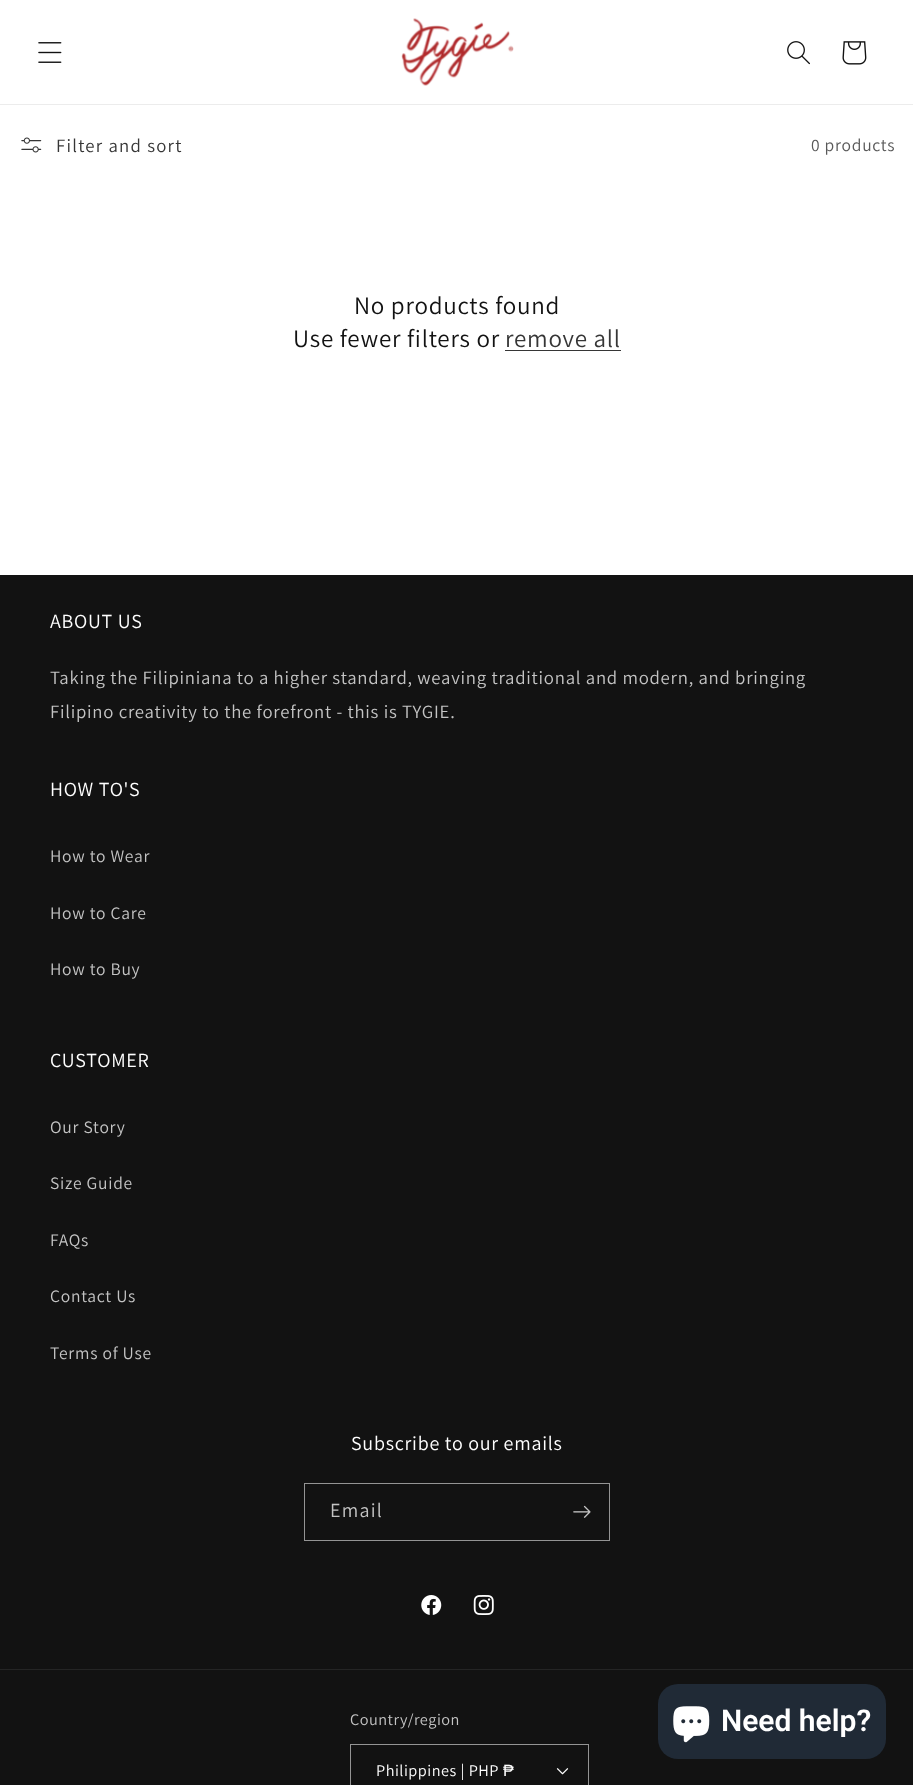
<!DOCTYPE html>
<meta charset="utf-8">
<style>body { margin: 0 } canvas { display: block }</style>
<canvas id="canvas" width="913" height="1785"></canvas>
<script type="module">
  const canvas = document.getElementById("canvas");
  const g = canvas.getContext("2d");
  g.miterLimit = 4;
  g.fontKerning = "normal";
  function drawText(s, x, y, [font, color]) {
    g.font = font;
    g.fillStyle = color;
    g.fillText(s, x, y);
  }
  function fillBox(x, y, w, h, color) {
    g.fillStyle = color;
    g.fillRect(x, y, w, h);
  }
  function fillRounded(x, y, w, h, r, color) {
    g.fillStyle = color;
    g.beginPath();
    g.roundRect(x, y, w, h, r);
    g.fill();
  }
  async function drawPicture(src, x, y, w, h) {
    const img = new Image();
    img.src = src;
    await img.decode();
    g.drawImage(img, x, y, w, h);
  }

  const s1 = ["18.75px Assistant", "#363636"];
  const s2 = ["17.5px Assistant", "#595959"];
  const s3 = ["25px Assistant", "#121212"];
  const s4 = ["25px Assistant", "#363636"];
  const s5 = ["20px Assistant", "#FFFFFF"];
  const s6 = ["18.75px Assistant", "#C4C4C4"];
  const s7 = ["17.5px Assistant", "#C4C4C4"];
  const s8 = ["20px Assistant", "#C4C4C4"];
  const s9 = ["16.25px Assistant", "#C4C4C4"];
  const s10 = ["16.25px Assistant", "#FFFFFF"];
  const s11 = ["16.25px Liberation Sans", "#FFFFFF"];
  const s12 = ["600 30px Roboto", "#FFFFFF"];

  fillBox(0, 0, 913, 1785, "#FFFFFF");
  fillBox(0, 104, 913, 1, "#ECECEC");
  await drawPicture("pic1.png", 38, 42, 24, 21);
  await drawPicture("pic2.png", 401, 18, 113, 68);
  await drawPicture("pic3.png", 787, 41, 23, 24);
  await drawPicture("pic4.png", 842, 41, 25, 24);
  await drawPicture("pic5.png", 21, 137, 21, 16);
  g.letterSpacing = "1.25px";
  drawText("Filter and sort", 56, 152, s1);
  g.letterSpacing = "0.75px";
  drawText("0 products", 811, 151, s2);
  drawText("No products found", 354, 314, s3);
  drawText("Use fewer filters or", 293, 347, s3);
  drawText("remove all", 505, 347, s4);
  fillBox(505, 350, 116, 1, "#363636");
  fillBox(0, 575, 913, 1210, "#121212");
  drawText("ABOUT US", 50, 628, s5);
  drawText("Taking the Filipiniana to a higher standard, weaving traditional and modern, and bringing", 50, 684, s6);
  drawText("Filipino creativity to the forefront - this is TYGIE.", 50, 718, s6);
  drawText("HOW TO'S", 50, 796, s5);
  drawText("How to Wear", 50, 862, s7);
  drawText("How to Care", 50, 919, s7);
  drawText("How to Buy", 50, 975, s7);
  drawText("CUSTOMER", 50, 1067, s5);
  drawText("Our Story", 50, 1133, s7);
  drawText("Size Guide", 50, 1189, s7);
  drawText("FAQs", 50, 1246, s7);
  drawText("Contact Us", 50, 1302, s7);
  drawText("Terms of Use", 50, 1359, s7);
  drawText("Subscribe to our emails", 351, 1450, s5);
  g.strokeStyle = "#949494";
  g.strokeRect(304.5, 1483.5, 305, 57);
  g.letterSpacing = "1.25px";
  drawText("Email", 330, 1517, s8);
  await drawPicture("pic6.png", 573, 1505, 18, 13);
  await drawPicture("pic7.png", 421, 1595, 21, 20);
  await drawPicture("pic8.png", 473, 1595, 21, 20);
  fillBox(0, 1669, 913, 1, "#252525");
  g.letterSpacing = "0.5px";
  drawText("Country/region", 350, 1725, s9);
  await drawPicture("pic9.png", 556, 1768, 13, 7);
  g.strokeRect(350.5, 1744.5, 238, 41);
  drawText("Philippines | PHP", 376, 1776, s10);
  drawText("₱", 503, 1776, s11);
  fillRounded(658, 1684, 228, 75, 20, "#202A36");
  await drawPicture("pic10.png", 673, 1706, 37, 37);
  g.letterSpacing = "0px";
  drawText("Need help?", 721, 1731, s12);
</script>
